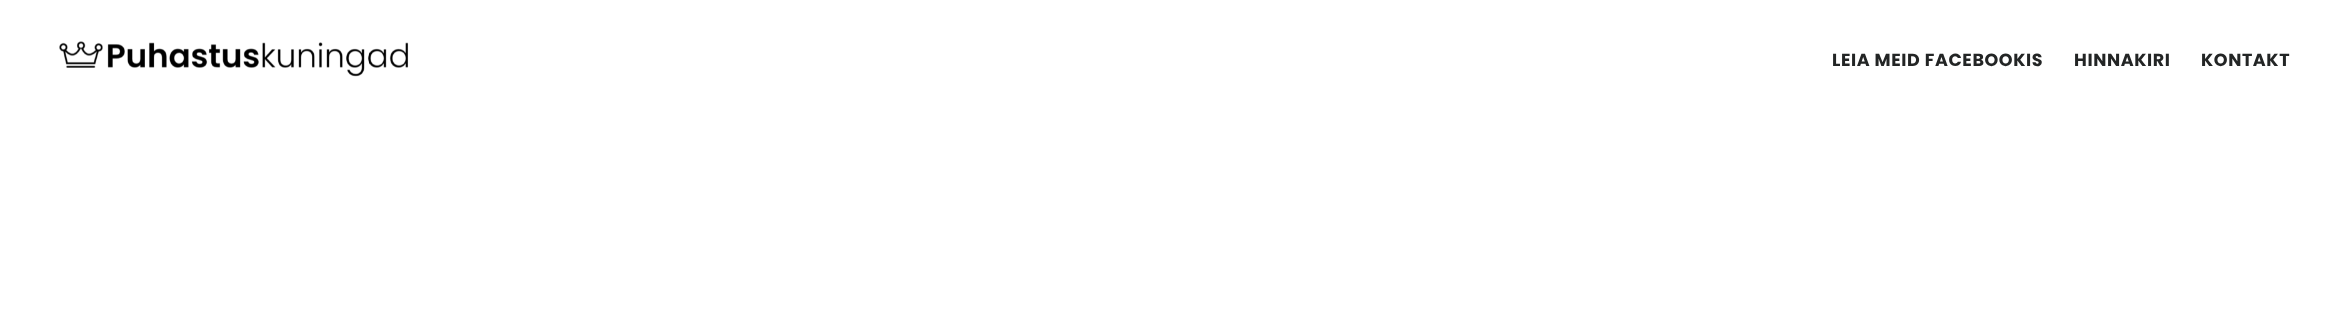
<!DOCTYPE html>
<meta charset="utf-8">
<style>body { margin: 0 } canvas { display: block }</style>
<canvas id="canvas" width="2352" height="329"></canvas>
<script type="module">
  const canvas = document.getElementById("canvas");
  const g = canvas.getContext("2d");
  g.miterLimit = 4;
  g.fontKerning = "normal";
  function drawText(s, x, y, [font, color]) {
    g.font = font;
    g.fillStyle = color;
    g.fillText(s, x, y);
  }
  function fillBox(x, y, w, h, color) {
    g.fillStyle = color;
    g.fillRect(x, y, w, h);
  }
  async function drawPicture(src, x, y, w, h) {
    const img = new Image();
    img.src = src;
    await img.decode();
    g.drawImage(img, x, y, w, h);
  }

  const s1 = ["bold 17.5px Poppins", "#232525"];

  fillBox(0, 0, 2352, 329, "#FFFFFF");
  await drawPicture("pic1.png", 59, 41, 350, 36);
  g.letterSpacing = "0.6px";
  drawText("LEIA MEID FACEBOOKIS", 1832, 66, s1);
  drawText("HINNAKIRI", 2074, 66, s1);
  drawText("KONTAKT", 2201, 66, s1);
</script>
